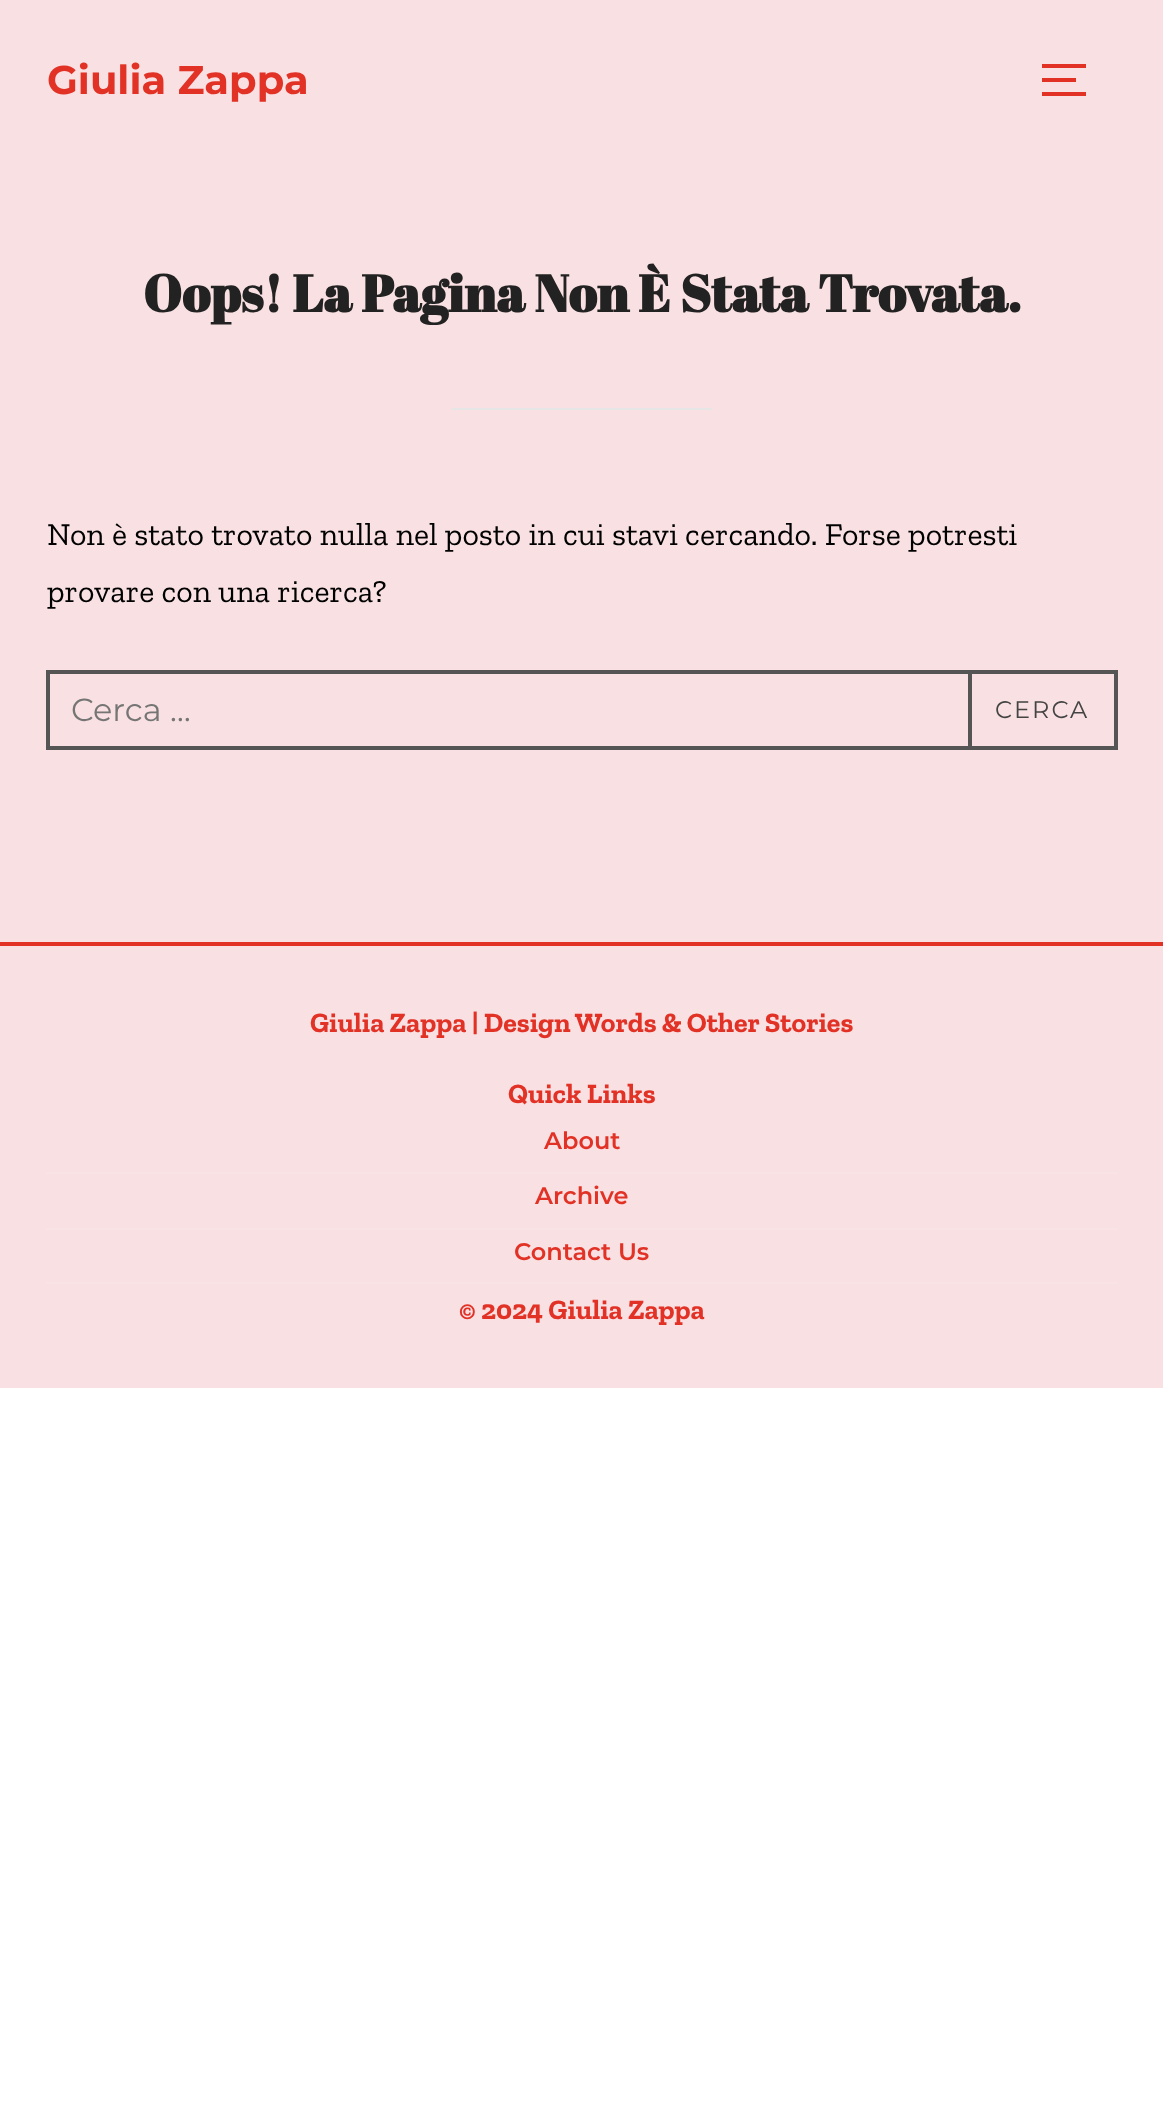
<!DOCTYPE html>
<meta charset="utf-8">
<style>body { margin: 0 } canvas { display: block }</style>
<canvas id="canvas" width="1163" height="2120"></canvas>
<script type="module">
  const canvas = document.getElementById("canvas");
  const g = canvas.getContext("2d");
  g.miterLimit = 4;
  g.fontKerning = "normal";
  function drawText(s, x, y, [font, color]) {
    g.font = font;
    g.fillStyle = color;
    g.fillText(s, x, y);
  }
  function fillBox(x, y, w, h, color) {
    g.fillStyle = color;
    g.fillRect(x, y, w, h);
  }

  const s1 = ["bold 40px Montserrat", "#E23125"];
  const s2 = ["bold 52px Abril Fatface", "#222222"];
  const s3 = ["32px Zilla Slab", "#000000"];
  const s4 = ["32px Montserrat", "#757575"];
  const s5 = ["24px Montserrat", "#444444"];
  const s6 = ["bold 28px Zilla Slab", "#E23125"];
  const s7 = ["600 24px Montserrat", "#E23125"];

  fillBox(0, 0, 1163, 2120, "#FFFFFF");
  fillBox(0, 0, 1163, 1388, "#F9E0E2");
  drawText("Giulia Zappa", 47, 94, s1);
  fillBox(1042, 64, 44, 4, "#E23125");
  fillBox(1042, 78, 34, 4, "#E23125");
  fillBox(1042, 92, 44, 4, "#E23125");
  drawText("Oops! La Pagina Non È Stata Trovata.", 143, 312, s2);
  fillBox(452, 408, 260, 2, "#E6E6E6");
  drawText("Non è stato trovato nulla nel posto in cui stavi cercando. Forse potresti", 47, 545, s3);
  drawText("provare con una ricerca?", 47, 602, s3);
  g.strokeStyle = "#565555";
  g.lineWidth = 4;
  g.strokeRect(48, 672, 1068, 76);
  drawText("Cerca …", 71, 721, s4);
  g.strokeRect(970, 672, 146, 76);
  g.letterSpacing = "2px";
  drawText("CERCA", 995, 718, s5);
  fillBox(0, 942, 1163, 4, "#E23125");
  g.letterSpacing = "0px";
  drawText("Giulia Zappa | Design Words & Other Stories", 310, 1032, s6);
  drawText("Quick Links", 508, 1103, s6);
  fillBox(46, 1172, 1072, 2, "#FAE3E5");
  drawText("About", 544, 1149, s7);
  fillBox(46, 1228, 1072, 2, "#FAE3E5");
  drawText("Archive", 535, 1204, s7);
  fillBox(46, 1282, 1072, 2, "#FAE3E5");
  drawText("Contact Us", 514, 1260, s7);
  drawText("© 2024 Giulia Zappa", 459, 1319, s6);
</script>
